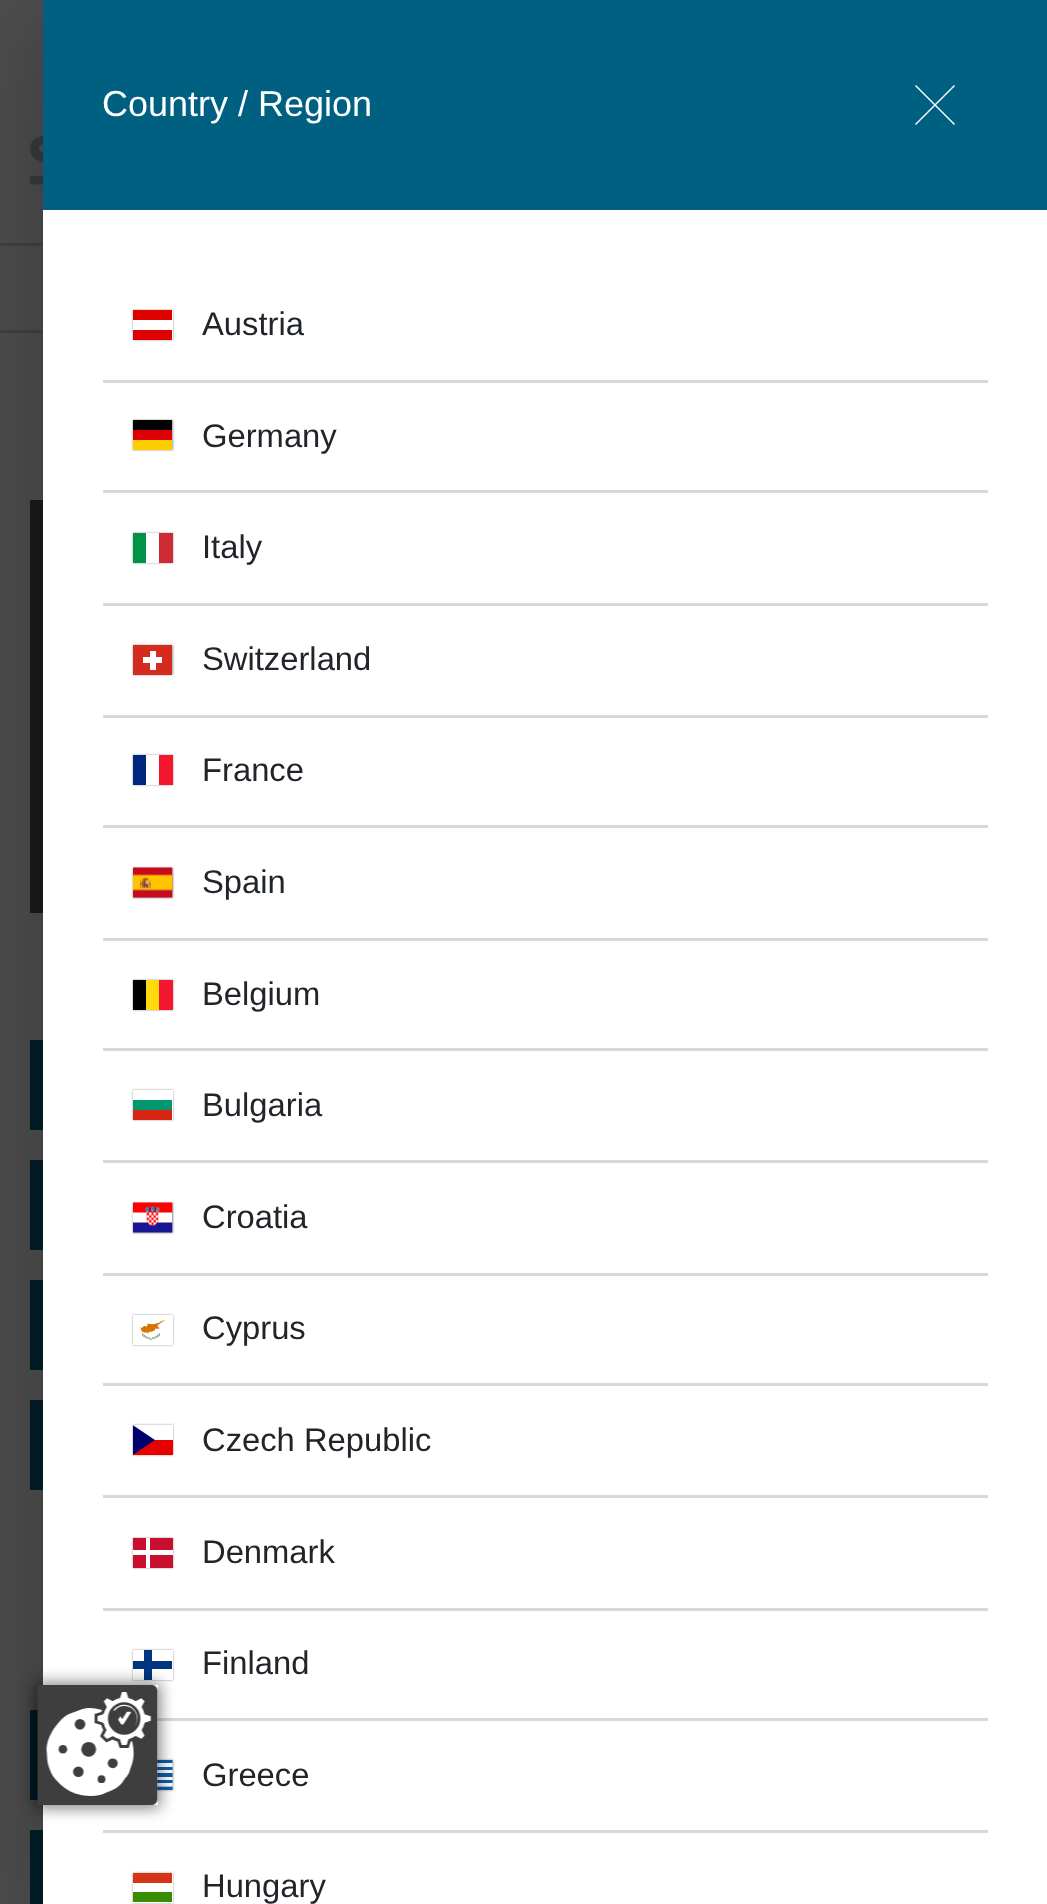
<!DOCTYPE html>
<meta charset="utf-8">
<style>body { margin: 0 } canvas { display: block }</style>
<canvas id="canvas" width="1047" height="1904"></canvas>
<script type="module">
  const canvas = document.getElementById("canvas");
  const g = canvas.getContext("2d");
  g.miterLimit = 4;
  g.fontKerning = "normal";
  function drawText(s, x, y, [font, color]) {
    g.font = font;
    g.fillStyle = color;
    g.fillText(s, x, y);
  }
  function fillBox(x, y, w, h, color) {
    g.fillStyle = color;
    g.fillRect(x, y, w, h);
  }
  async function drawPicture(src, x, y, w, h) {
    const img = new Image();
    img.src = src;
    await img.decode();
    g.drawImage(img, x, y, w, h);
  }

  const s1 = ["36px Liberation Sans", "#FFFFFF"];
  const s2 = ["32.75px Liberation Sans", "#212529"];

  fillBox(0, 0, 1047, 1904, "#4D4D4D");
  await drawPicture("pic1.png", 30, 136, 13, 49);
  fillBox(0, 243, 43, 3, "#424242");
  fillBox(0, 330, 43, 3, "#424242");
  fillBox(30, 500, 13, 413, "#1A1B1B");
  fillBox(30, 1040, 13, 90, "#001D27");
  fillBox(30, 1160, 13, 90, "#001D27");
  fillBox(30, 1280, 13, 90, "#001D27");
  fillBox(30, 1400, 13, 90, "#001D27");
  fillBox(30, 1710, 8, 90, "#001D27");
  fillBox(30, 1830, 13, 74, "#001D27");
  g.fillStyle = "rgba(0, 0, 0, 0.25)";
  g.filter = "blur(50px)";
  g.beginPath();
  g.rect(43, 25, 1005, 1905);
  g.fill();
  g.filter = "none";
  fillBox(43, 210, 1004, 1694, "#FFFFFF");
  fillBox(43, 0, 1004, 210, "#006081");
  drawText("Country / Region", 102, 116, s1);
  g.beginPath();
  g.moveTo(955, 86);
  g.lineTo(954, 85);
  g.lineTo(935, 104);
  g.lineTo(916, 85);
  g.lineTo(915, 86);
  g.lineTo(934, 105);
  g.lineTo(915, 124);
  g.lineTo(916, 125);
  g.lineTo(935, 106);
  g.lineTo(954, 125);
  g.lineTo(955, 124);
  g.lineTo(936, 105);
  g.closePath();
  g.fill();
  fillBox(103, 380, 885, 3, "#D2DADD");
  g.save();
  g.beginPath();
  g.moveTo(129, 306);
  g.lineTo(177, 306);
  g.lineTo(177, 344);
  g.lineTo(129, 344);
  g.closePath();
  g.moveTo(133, 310);
  g.lineTo(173, 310);
  g.lineTo(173, 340);
  g.lineTo(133, 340);
  g.closePath();
  g.clip("evenodd");
  g.fillStyle = "rgba(0, 0, 0, 0.4)";
  g.filter = "blur(1px)";
  g.beginPath();
  g.rect(133, 310, 40, 30);
  g.fill();
  g.filter = "none";
  g.restore();
  g.save();
  g.beginPath();
  g.rect(133, 310, 40, 30);
  g.clip();
  g.fillStyle = "#DF0000";
  g.beginPath();
  g.moveTo(172, 340);
  g.lineTo(132, 340);
  g.lineTo(132, 330);
  g.lineTo(172, 330);
  g.closePath();
  g.moveTo(172, 320);
  g.lineTo(132, 320);
  g.lineTo(132, 310);
  g.lineTo(172, 310);
  g.closePath();
  g.fill("evenodd");
  g.restore();
  drawText("Austria", 202, 335, s2);
  fillBox(103, 490, 885, 3, "#D2DADD");
  g.fillStyle = "rgba(0, 0, 0, 0.4)";
  g.filter = "blur(1px)";
  g.beginPath();
  g.rect(133, 420, 40, 30);
  g.fill();
  g.filter = "none";
  fillBox(133, 440, 39, 10, "#FFCE00");
  fillBox(133, 420, 39, 10, "#000000");
  fillBox(133, 430, 39, 10, "#DD0000");
  drawText("Germany", 202, 447, s2);
  fillBox(103, 603, 885, 3, "#D2DADD");
  g.save();
  g.beginPath();
  g.moveTo(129, 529);
  g.lineTo(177, 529);
  g.lineTo(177, 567);
  g.lineTo(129, 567);
  g.closePath();
  g.moveTo(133, 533);
  g.lineTo(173, 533);
  g.lineTo(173, 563);
  g.lineTo(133, 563);
  g.closePath();
  g.clip("evenodd");
  g.fillStyle = "rgba(0, 0, 0, 0.4)";
  g.filter = "blur(1px)";
  g.beginPath();
  g.rect(133, 533, 40, 30);
  g.fill();
  g.filter = "none";
  g.restore();
  fillBox(133, 533, 13, 30, "#009246");
  fillBox(159, 533, 14, 30, "#CE2B37");
  drawText("Italy", 202, 558, s2);
  fillBox(103, 715, 885, 3, "#D2DADD");
  g.fillStyle = "rgba(0, 0, 0, 0.4)";
  g.filter = "blur(1px)";
  g.beginPath();
  g.rect(133, 645, 40, 30);
  g.fill();
  g.filter = "none";
  fillBox(133, 645, 39, 30, "#D52B1E");
  fillBox(143, 657, 19, 6, "#FFFFFF");
  fillBox(150, 651, 6, 19, "#FFFFFF");
  drawText("Switzerland", 202, 670, s2);
  fillBox(103, 825, 885, 3, "#D2DADD");
  g.save();
  g.beginPath();
  g.moveTo(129, 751);
  g.lineTo(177, 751);
  g.lineTo(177, 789);
  g.lineTo(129, 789);
  g.closePath();
  g.moveTo(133, 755);
  g.lineTo(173, 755);
  g.lineTo(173, 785);
  g.lineTo(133, 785);
  g.closePath();
  g.clip("evenodd");
  g.fillStyle = "rgba(0, 0, 0, 0.4)";
  g.filter = "blur(1px)";
  g.beginPath();
  g.rect(133, 755, 40, 30);
  g.fill();
  g.filter = "none";
  g.restore();
  fillBox(133, 755, 13, 30, "#00267F");
  fillBox(159, 755, 14, 30, "#F31830");
  drawText("France", 202, 781, s2);
  fillBox(103, 938, 885, 3, "#D2DADD");
  g.fillStyle = "rgba(0, 0, 0, 0.4)";
  g.filter = "blur(1px)";
  g.beginPath();
  g.rect(133, 868, 40, 30);
  g.fill();
  g.filter = "none";
  await drawPicture("pic2.png", 133, 867, 40, 31);
  drawText("Spain", 202, 893, s2);
  fillBox(103, 1048, 885, 3, "#D2DADD");
  g.fillStyle = "rgba(0, 0, 0, 0.4)";
  g.filter = "blur(1px)";
  g.beginPath();
  g.rect(133, 980, 40, 30);
  g.fill();
  g.filter = "none";
  fillBox(133, 980, 13, 30, "#000000");
  fillBox(146, 980, 13, 30, "#FFD90C");
  fillBox(159, 980, 14, 30, "#F31830");
  drawText("Belgium", 202, 1005, s2);
  fillBox(103, 1160, 885, 3, "#D2DADD");
  g.save();
  g.beginPath();
  g.moveTo(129, 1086);
  g.lineTo(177, 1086);
  g.lineTo(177, 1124);
  g.lineTo(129, 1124);
  g.closePath();
  g.moveTo(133, 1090);
  g.lineTo(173, 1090);
  g.lineTo(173, 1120);
  g.lineTo(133, 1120);
  g.closePath();
  g.clip("evenodd");
  g.fillStyle = "rgba(0, 0, 0, 0.4)";
  g.filter = "blur(1px)";
  g.beginPath();
  g.rect(133, 1090, 40, 30);
  g.fill();
  g.filter = "none";
  g.restore();
  fillBox(133, 1110, 39, 10, "#D62612");
  fillBox(133, 1100, 39, 10, "#00966E");
  drawText("Bulgaria", 202, 1116, s2);
  fillBox(103, 1273, 885, 3, "#D2DADD");
  g.fillStyle = "rgba(0, 0, 0, 0.4)";
  g.filter = "blur(1px)";
  g.beginPath();
  g.rect(133, 1203, 40, 30);
  g.fill();
  g.filter = "none";
  await drawPicture("pic3.png", 133, 1202, 40, 31);
  drawText("Croatia", 202, 1228, s2);
  fillBox(103, 1383, 885, 3, "#D2DADD");
  g.save();
  g.beginPath();
  g.moveTo(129, 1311);
  g.lineTo(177, 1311);
  g.lineTo(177, 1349);
  g.lineTo(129, 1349);
  g.closePath();
  g.moveTo(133, 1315);
  g.lineTo(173, 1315);
  g.lineTo(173, 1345);
  g.lineTo(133, 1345);
  g.closePath();
  g.clip("evenodd");
  g.fillStyle = "rgba(0, 0, 0, 0.4)";
  g.filter = "blur(1px)";
  g.beginPath();
  g.rect(133, 1315, 40, 30);
  g.fill();
  g.filter = "none";
  g.restore();
  await drawPicture("pic4.png", 140, 1319, 25, 21);
  drawText("Cyprus", 202, 1339, s2);
  fillBox(103, 1495, 885, 3, "#D2DADD");
  g.fillStyle = "rgba(0, 0, 0, 0.4)";
  g.filter = "blur(1px)";
  g.beginPath();
  g.rect(133, 1425, 40, 30);
  g.fill();
  g.filter = "none";
  fillBox(133, 1440, 40, 15, "#E80000");
  fillBox(133, 1425, 40, 15, "#FFFFFF");
  g.save();
  g.beginPath();
  g.rect(133, 1425, 40, 30);
  g.clip();
  g.fillStyle = "#00006F";
  g.beginPath();
  g.moveTo(132.5, 1425);
  g.lineTo(155, 1440);
  g.lineTo(132.5, 1455);
  g.closePath();
  g.fill("evenodd");
  g.restore();
  drawText("Czech Republic", 202, 1451, s2);
  fillBox(103, 1608, 885, 3, "#D2DADD");
  g.fillStyle = "rgba(0, 0, 0, 0.4)";
  g.filter = "blur(1px)";
  g.beginPath();
  g.rect(133, 1538, 40, 30);
  g.fill();
  g.filter = "none";
  fillBox(133, 1538, 40, 30, "#C8102E");
  fillBox(146, 1538, 4, 30, "#FFFFFF");
  fillBox(133, 1550, 40, 5, "#FFFFFF");
  drawText("Denmark", 202, 1563, s2);
  fillBox(157, 1718, 831, 3, "#D2DADD");
  g.save();
  g.beginPath();
  g.moveTo(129, 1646);
  g.lineTo(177, 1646);
  g.lineTo(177, 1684);
  g.lineTo(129, 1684);
  g.closePath();
  g.moveTo(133, 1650);
  g.lineTo(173, 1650);
  g.lineTo(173, 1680);
  g.lineTo(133, 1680);
  g.closePath();
  g.clip("evenodd");
  g.fillStyle = "rgba(0, 0, 0, 0.4)";
  g.filter = "blur(1px)";
  g.beginPath();
  g.rect(133, 1650, 40, 30);
  g.fill();
  g.filter = "none";
  g.restore();
  fillBox(133, 1661, 39, 8, "#003580");
  fillBox(144, 1650, 8, 30, "#003580");
  drawText("Finland", 202, 1674, s2);
  fillBox(103, 1830, 885, 3, "#D2DADD");
  g.fillStyle = "rgba(0, 0, 0, 0.4)";
  g.filter = "blur(1px)";
  g.beginPath();
  g.rect(133, 1760, 40, 30);
  g.fill();
  g.filter = "none";
  await drawPicture("pic5.png", 157, 1760, 16, 30);
  drawText("Greece", 202, 1786, s2);
  g.save();
  g.beginPath();
  g.moveTo(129, 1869);
  g.lineTo(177, 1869);
  g.lineTo(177, 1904);
  g.lineTo(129, 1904);
  g.closePath();
  g.moveTo(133, 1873);
  g.lineTo(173, 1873);
  g.lineTo(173, 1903);
  g.lineTo(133, 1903);
  g.closePath();
  g.clip("evenodd");
  g.fillStyle = "rgba(0, 0, 0, 0.4)";
  g.filter = "blur(1px)";
  g.beginPath();
  g.rect(133, 1873, 40, 30);
  g.fill();
  g.filter = "none";
  g.restore();
  fillBox(133, 1892, 39, 10, "#388D00");
  fillBox(133, 1873, 39, 10, "#D43516");
  drawText("Hungary", 202, 1897, s2);
  g.save();
  g.beginPath();
  g.moveTo(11, 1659);
  g.lineTo(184, 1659);
  g.lineTo(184, 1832);
  g.lineTo(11, 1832);
  g.closePath();
  g.moveTo(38, 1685);
  g.lineTo(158, 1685);
  g.lineTo(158, 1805);
  g.lineTo(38, 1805);
  g.closePath();
  g.clip("evenodd");
  g.fillStyle = "rgba(0, 0, 0, 0.5)";
  g.filter = "blur(7.5px)";
  g.beginPath();
  g.rect(35, 1683, 125, 125);
  g.fill();
  g.filter = "none";
  g.restore();
  await drawPicture("pic6.png", 37, 1685, 121, 120);
</script>
